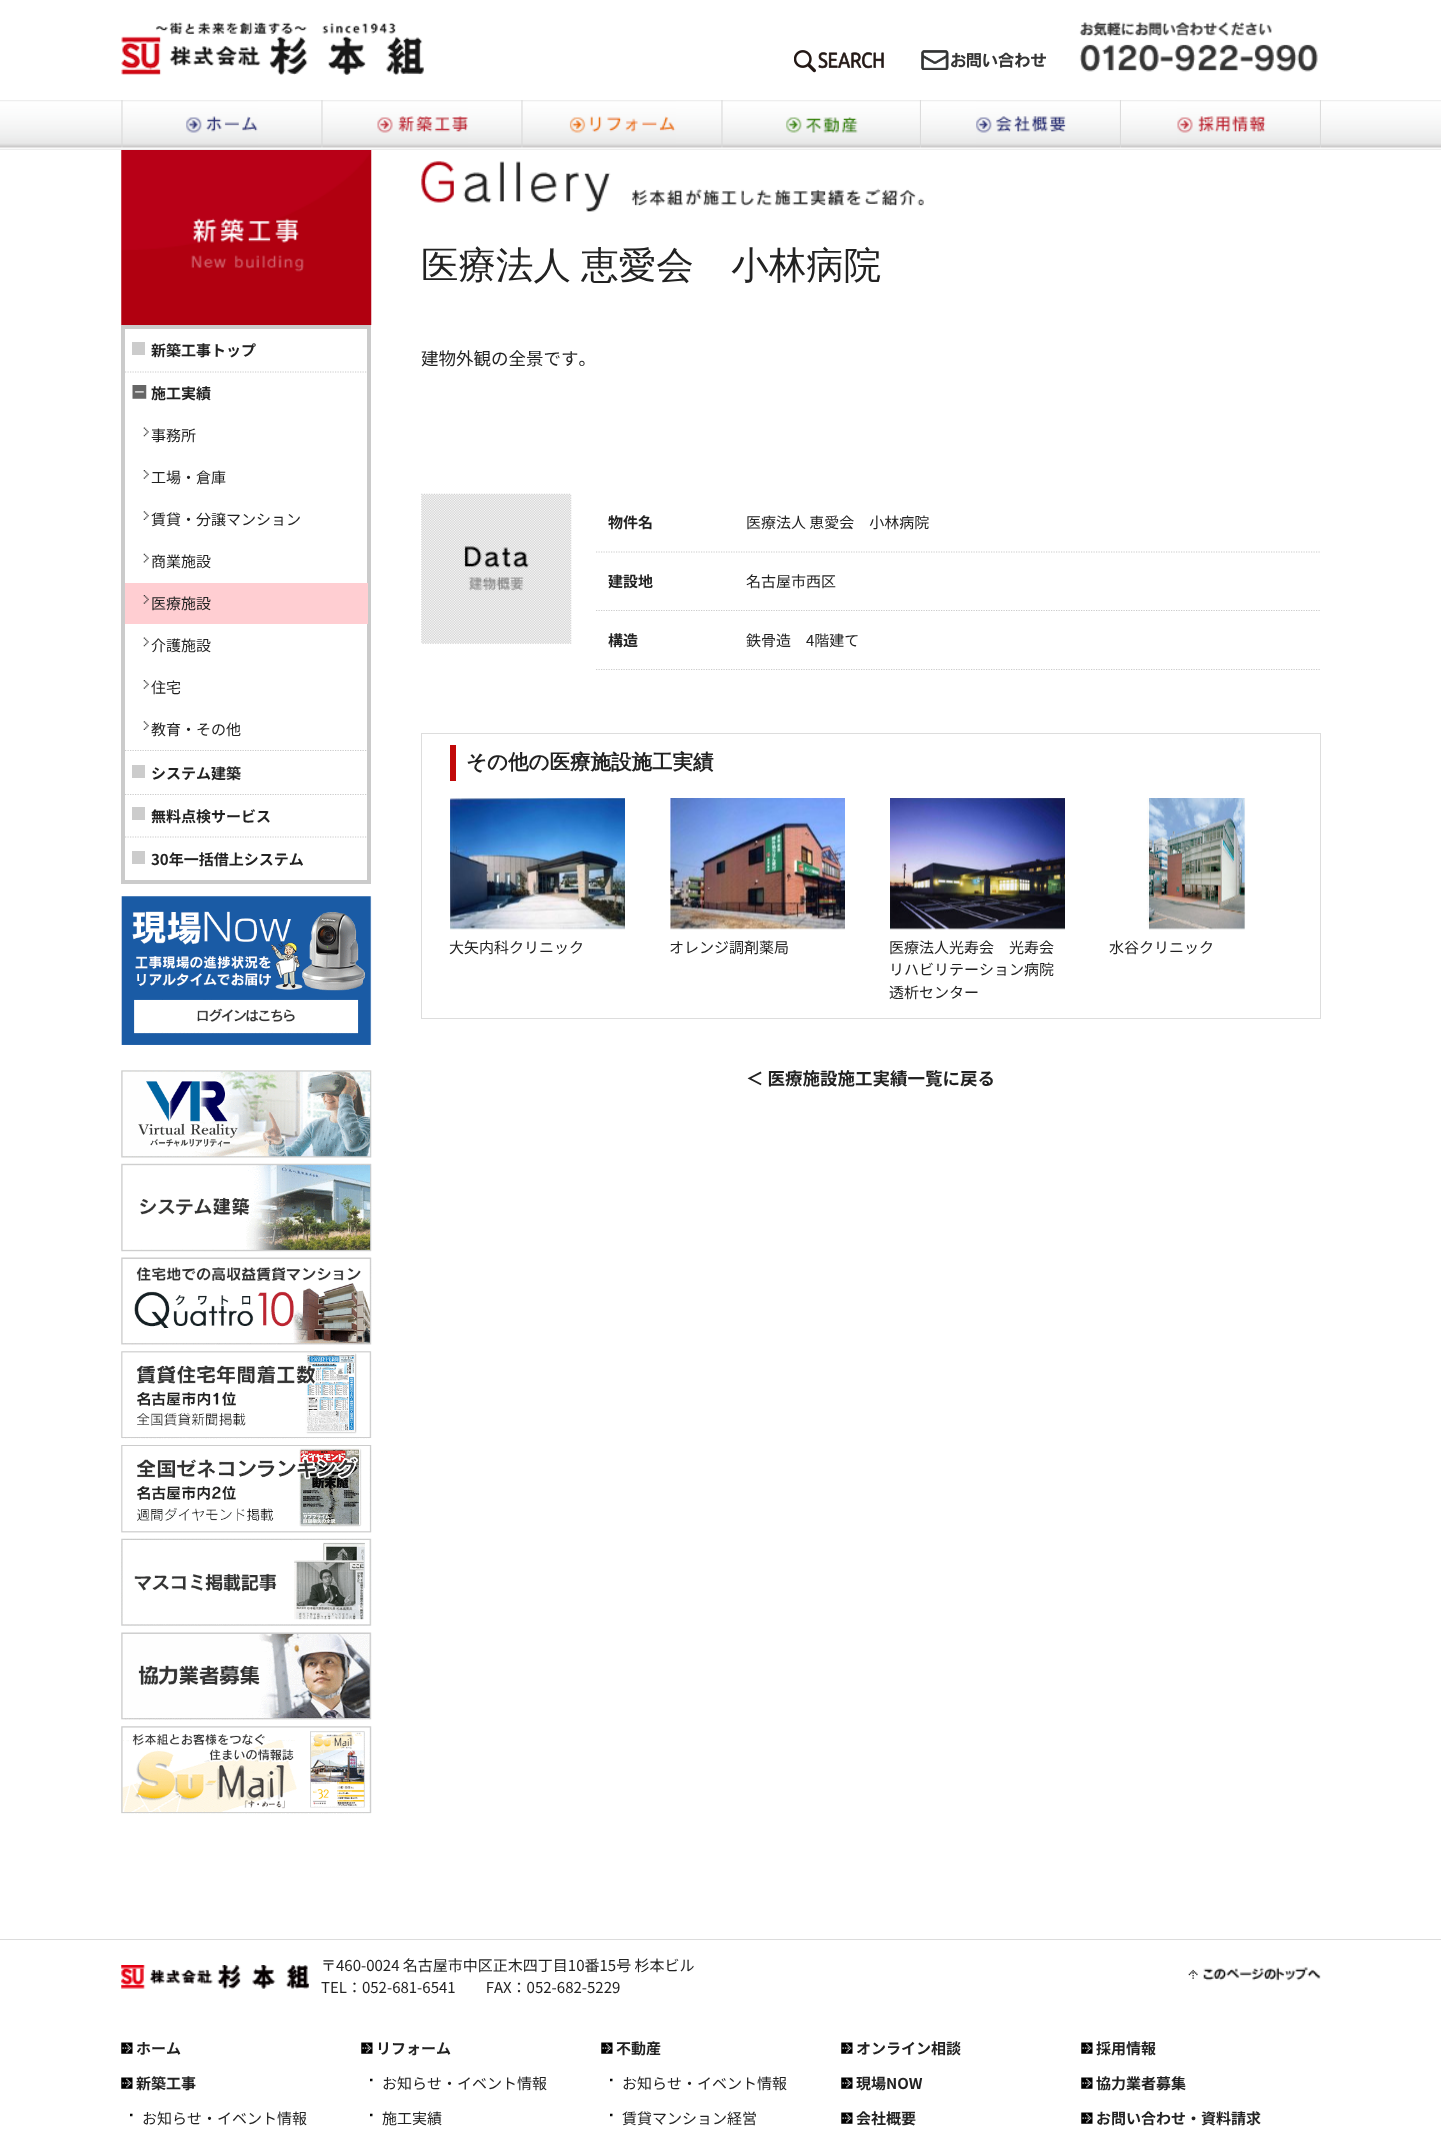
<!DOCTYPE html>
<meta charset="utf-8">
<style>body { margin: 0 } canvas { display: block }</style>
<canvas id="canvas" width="1441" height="2135"></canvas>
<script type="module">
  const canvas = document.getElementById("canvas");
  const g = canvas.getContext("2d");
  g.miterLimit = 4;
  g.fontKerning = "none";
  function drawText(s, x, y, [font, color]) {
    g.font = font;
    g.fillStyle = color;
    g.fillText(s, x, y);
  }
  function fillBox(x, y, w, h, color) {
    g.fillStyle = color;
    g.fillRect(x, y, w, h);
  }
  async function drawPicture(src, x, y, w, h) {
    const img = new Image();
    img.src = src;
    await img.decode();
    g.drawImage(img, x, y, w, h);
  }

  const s1 = ["bold 15px Noto Sans JP", "#222222"];
  const s2 = ["15px Noto Sans JP", "#222222"];
  const s3 = ["500 37.5px WenQuanYi Zen Hei", "#222222"];
  const s4 = ["17.5px Noto Sans JP", "#222222"];
  const s5 = ["bold 20.5px WenQuanYi Zen Hei", "#222222"];
  const s6 = ["bold 17.5px Noto Sans JP", "#222222"];

  fillBox(0, 0, 1441, 2135, "#FFFFFF");
  await drawPicture("pic1.png", 121, 22, 303, 53);
  await drawPicture("pic2.png", 794, 50, 90, 23);
  await drawPicture("pic3.png", 921, 50, 125, 20);
  await drawPicture("pic4.png", 1079, 22, 239, 50);
  await drawPicture("pic5.png", 0, 100, 1441, 50);
  await drawPicture("pic6.png", 121, 100, 137, 48);
  await drawPicture("pic7.png", 321, 100, 147, 48);
  await drawPicture("pic8.png", 521, 100, 155, 48);
  await drawPicture("pic9.png", 721, 100, 200, 48);
  await drawPicture("pic10.png", 976, 100, 145, 48);
  await drawPicture("pic11.png", 1177, 100, 144, 48);
  await drawPicture("pic12.png", 121, 150, 251, 175);
  g.strokeStyle = "#CBCBCB";
  g.lineWidth = 4;
  g.strokeRect(123, 327, 246, 555);
  fillBox(132, 342, 13, 13, "#CCCCCC");
  drawText("新築工事トップ", 151, 356, s1);
  g.beginPath();
  g.moveTo(125, 372);
  g.lineTo(367.5, 372);
  g.strokeStyle = "#CCCCCC";
  g.lineWidth = 1.2;
  g.setLineDash([1.25, 1.25]);
  g.stroke();
  await drawPicture("pic13.png", 132, 385, 15, 14);
  drawText("施工実績", 151, 399, s1);
  await drawPicture("pic14.png", 143, 427, 6, 10);
  drawText("事務所", 151, 441, s2);
  await drawPicture("pic15.png", 143, 470, 6, 9);
  drawText("工場・倉庫", 151, 483, s2);
  await drawPicture("pic16.png", 143, 511, 6, 9);
  drawText("賃貸・分譲マンション", 151, 525, s2);
  await drawPicture("pic17.png", 143, 553, 6, 10);
  drawText("商業施設", 151, 567, s2);
  fillBox(125, 583, 243, 41, "#FFCED2");
  await drawPicture("pic18.png", 143, 595, 6, 9);
  drawText("医療施設", 151, 609, s2);
  await drawPicture("pic14.png", 143, 637, 6, 10);
  drawText("介護施設", 151, 651, s2);
  await drawPicture("pic15.png", 143, 680, 6, 9);
  drawText("住宅", 151, 693, s2);
  await drawPicture("pic16.png", 143, 721, 6, 9);
  drawText("教育・その他", 151, 735, s2);
  g.beginPath();
  g.moveTo(125, 750.5);
  g.lineTo(367.5, 750.5);
  g.stroke();
  fillBox(132, 765, 13, 13, "#CCCCCC");
  drawText("システム建築", 151, 779, s1);
  g.beginPath();
  g.moveTo(125, 794.5);
  g.lineTo(367.5, 794.5);
  g.stroke();
  fillBox(132, 807, 13, 13, "#CCCCCC");
  drawText("無料点検サービス", 151, 822, s1);
  g.beginPath();
  g.moveTo(125, 837);
  g.lineTo(367.5, 837);
  g.stroke();
  fillBox(132, 851, 13, 13, "#CCCCCC");
  drawText("30年一括借上システム", 151, 865, s1);
  await drawPicture("pic19.png", 121, 896, 251, 149);
  await drawPicture("pic20.png", 121, 1070, 251, 88);
  await drawPicture("pic21.png", 121, 1163, 251, 89);
  await drawPicture("pic22.png", 121, 1257, 251, 88);
  await drawPicture("pic23.png", 121, 1351, 251, 88);
  await drawPicture("pic24.png", 121, 1445, 251, 88);
  await drawPicture("pic25.png", 121, 1538, 251, 88);
  await drawPicture("pic26.png", 121, 1632, 251, 88);
  await drawPicture("pic27.png", 121, 1726, 251, 88);
  await drawPicture("pic28.png", 421, 161, 503, 51);
  g.wordSpacing = "-1px";
  drawText("医療法人 恵愛会　小林病院", 421, 278, s3);
  g.wordSpacing = "0px";
  drawText("建物外観の全景です。", 421, 365, s4);
  await drawPicture("pic29.png", 421, 493, 151, 151);
  drawText("物件名", 608, 528, s1);
  g.beginPath();
  g.moveTo(596, 552);
  g.lineTo(1321, 552);
  g.stroke();
  drawText("医療法人 恵愛会　小林病院", 746, 528, s2);
  drawText("建設地", 608, 587, s1);
  g.beginPath();
  g.moveTo(596, 610.5);
  g.lineTo(1321, 610.5);
  g.stroke();
  drawText("名古屋市西区", 746, 587, s2);
  drawText("構造", 608, 646, s1);
  g.beginPath();
  g.moveTo(596, 669.5);
  g.lineTo(1321, 669.5);
  g.stroke();
  drawText("鉄骨造　4階建て", 746, 646, s2);
  g.strokeStyle = "#DDDDDD";
  g.lineWidth = 1;
  g.setLineDash([]);
  g.strokeRect(421.5, 733.5, 899, 285);
  fillBox(450, 745, 6, 36, "#C10909");
  drawText("その他の医療施設施工実績", 466, 769, s5);
  await drawPicture("pic30.png", 450, 798, 175, 132);
  drawText("大矢内科クリニック", 449, 953, s2);
  await drawPicture("pic31.png", 670, 798, 175, 132);
  drawText("オレンジ調剤薬局", 669, 953, s2);
  await drawPicture("pic32.png", 890, 798, 175, 132);
  drawText("医療法人光寿会　光寿会", 889, 953, s2);
  drawText("リハビリテーション病院", 889, 975, s2);
  drawText("透析センター", 889, 998, s2);
  await drawPicture("pic33.png", 1147, 798, 99, 132);
  drawText("水谷クリニック", 1109, 953, s2);
  drawText("＜ 医療施設施工実績一覧に戻る", 746, 1085, s6);
  fillBox(0, 1939, 1441, 1, "#DCDCDC");
  await drawPicture("pic34.png", 121, 1965, 188, 24);
  drawText("〒460-0024 名古屋市中区正木四丁目10番15号 杉本ビル", 321, 1971, s2);
  drawText("TEL：052-681-6541　　FAX：052-682-5229", 321, 1993, s2);
  await drawPicture("pic35.png", 1188, 1967, 133, 14);
  await drawPicture("pic36.png", 121, 2042, 12, 12);
  drawText("ホーム", 136, 2054, s1);
  await drawPicture("pic37.png", 121, 2077, 12, 12);
  drawText("新築工事", 136, 2089, s1);
  await drawPicture("pic38.png", 130, 2113, 3, 4);
  drawText("お知らせ・イベント情報", 142, 2124, s2);
  await drawPicture("pic36.png", 361, 2042, 12, 12);
  drawText("リフォーム", 376, 2054, s1);
  await drawPicture("pic38.png", 370, 2078, 3, 4);
  drawText("お知らせ・イベント情報", 382, 2089, s2);
  await drawPicture("pic38.png", 370, 2113, 3, 4);
  drawText("施工実績", 382, 2124, s2);
  await drawPicture("pic36.png", 601, 2042, 12, 12);
  drawText("不動産", 616, 2054, s1);
  await drawPicture("pic38.png", 610, 2078, 3, 4);
  drawText("お知らせ・イベント情報", 622, 2089, s2);
  await drawPicture("pic38.png", 610, 2113, 3, 4);
  drawText("賃貸マンション経営", 622, 2124, s2);
  await drawPicture("pic36.png", 841, 2042, 12, 12);
  drawText("オンライン相談", 856, 2054, s1);
  await drawPicture("pic37.png", 841, 2077, 12, 12);
  drawText("現場NOW", 856, 2089, s1);
  await drawPicture("pic37.png", 841, 2112, 12, 12);
  drawText("会社概要", 856, 2124, s1);
  await drawPicture("pic36.png", 1081, 2042, 12, 12);
  drawText("採用情報", 1096, 2054, s1);
  await drawPicture("pic37.png", 1081, 2077, 12, 12);
  drawText("協力業者募集", 1096, 2089, s1);
  await drawPicture("pic37.png", 1081, 2112, 12, 12);
  drawText("お問い合わせ・資料請求", 1096, 2124, s1);
</script>
